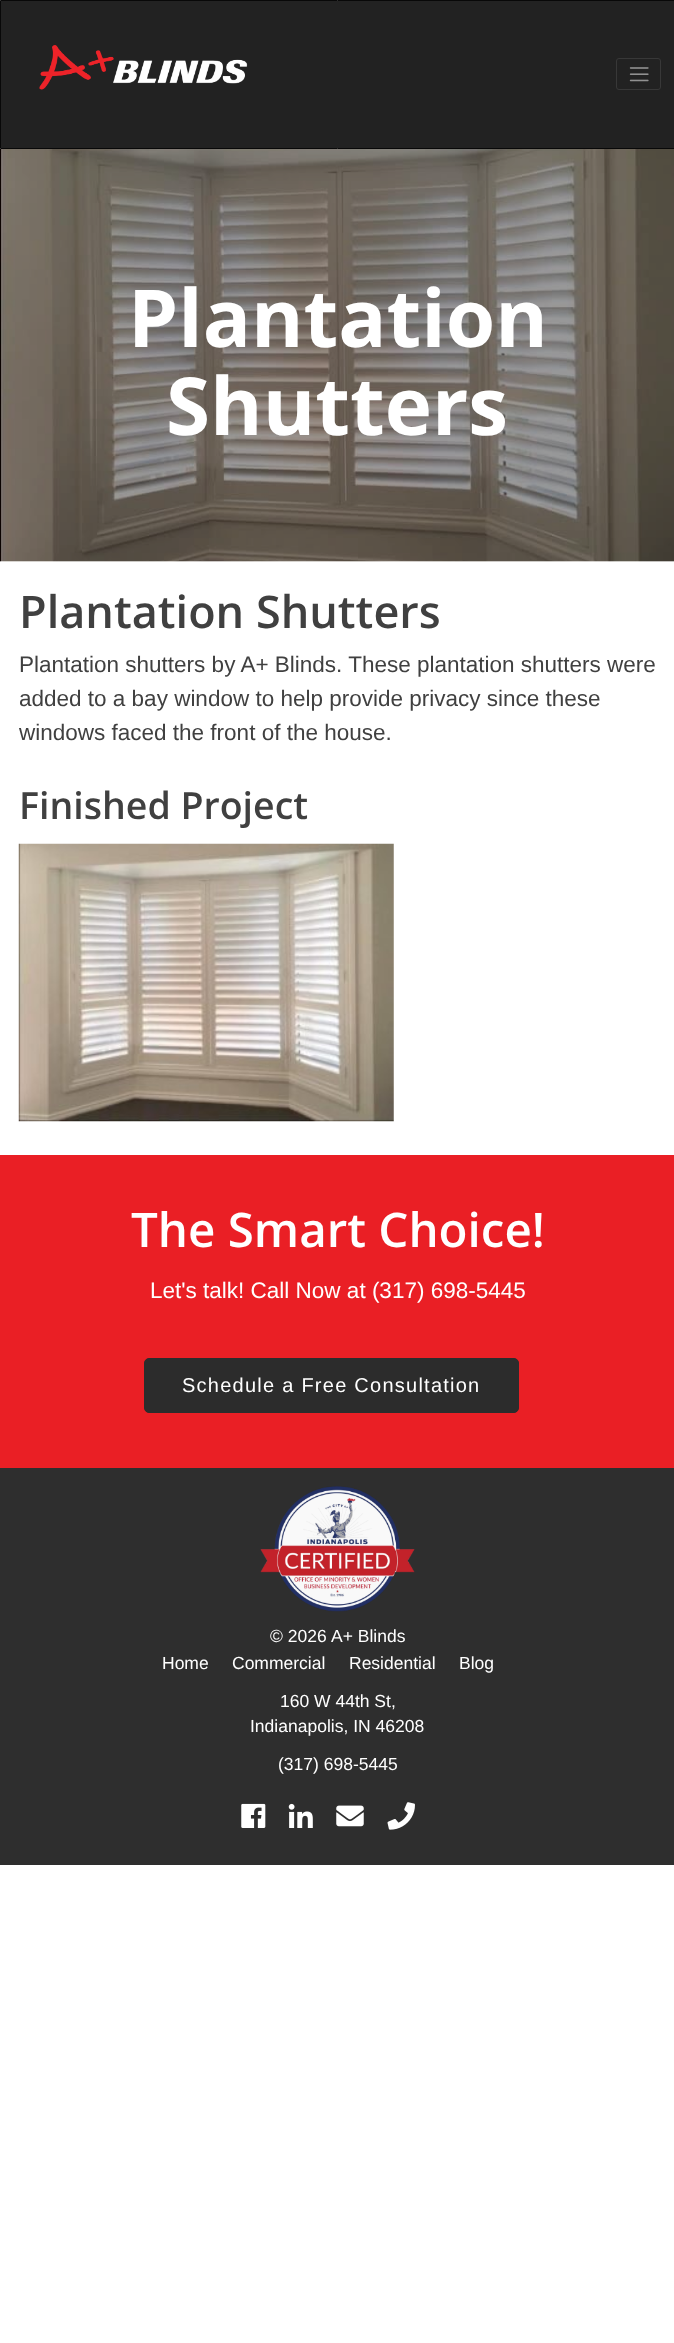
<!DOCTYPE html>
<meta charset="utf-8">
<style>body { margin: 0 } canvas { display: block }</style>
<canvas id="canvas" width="674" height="2343"></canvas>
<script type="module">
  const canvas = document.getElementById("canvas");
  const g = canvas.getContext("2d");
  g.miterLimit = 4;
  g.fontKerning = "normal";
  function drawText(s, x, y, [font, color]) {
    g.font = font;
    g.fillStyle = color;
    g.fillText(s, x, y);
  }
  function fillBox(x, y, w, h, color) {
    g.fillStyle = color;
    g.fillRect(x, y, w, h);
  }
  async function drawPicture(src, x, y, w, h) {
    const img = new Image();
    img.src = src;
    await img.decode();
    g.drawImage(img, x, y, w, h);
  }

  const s1 = ["bold 80px Open Sans", "#FFFFFF"];
  const s2 = ["600 45px Open Sans", "#404040"];
  const s3 = ["22.5px Liberation Sans", "#404040"];
  const s4 = ["600 37.5px Open Sans", "#404040"];
  const s5 = ["600 47.5px Open Sans", "#FFFFFF"];
  const s6 = ["22.5px Liberation Sans", "#FFFFFF"];
  const s7 = ["20px Liberation Sans", "#FFFFFF"];
  const s8 = ["17.5px Liberation Sans", "#FFFFFF"];

  fillBox(0, 0, 674, 2343, "#FFFFFF");
  g.fillStyle = "#222222";
  g.beginPath();
  g.rect(0.5, 0.5, 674, 148);
  g.fill();
  g.strokeStyle = "#080808";
  g.stroke();
  await drawPicture("pic1.png", 39, 44, 209, 46);
  g.beginPath();
  g.roundRect(616.5, 58.5, 44, 31, 2.5);
  g.strokeStyle = "#383838";
  g.stroke();
  await drawPicture("pic2.png", 629, 67, 20, 15);
  await drawPicture("pic3.png", 0, 149, 674, 413);
  drawText("Plantation", 128, 347, s1);
  drawText("Shutters", 166, 435, s1);
  drawText("Plantation Shutters", 19, 628, s2);
  drawText("Plantation shutters by A+ Blinds. These plantation shutters were", 19, 672, s3);
  drawText("added to a bay window to help provide privacy since these", 19, 706, s3);
  drawText("windows faced the front of the house.", 19, 740, s3);
  drawText("Finished Project", 19, 819, s4);
  await drawPicture("pic4.png", 18, 843, 376, 279);
  fillBox(0, 1155, 674, 313, "#EA1F25");
  drawText("The Smart Choice!", 131, 1247, s5);
  drawText("Let's talk! Call Now at (317) 698-5445", 150, 1298, s6);
  g.fillStyle = "#2C2C2C";
  g.beginPath();
  g.roundRect(144.5, 1358.5, 374, 54, 4.5);
  g.fill();
  g.strokeStyle = "#2C2C2C";
  g.stroke();
  g.letterSpacing = "1.25px";
  drawText("Schedule a Free Consultation", 182, 1392, s7);
  fillBox(0, 1468, 674, 397, "#2E2E2E");
  await drawPicture("pic5.png", 260, 1486, 155, 126);
  g.letterSpacing = "0px";
  drawText("© 2026", 270, 1642, s8);
  drawText("A+ Blinds", 331, 1642, s8);
  drawText("Home", 162, 1669, s8);
  drawText("Commercial", 232, 1669, s8);
  drawText("Residential", 349, 1669, s8);
  drawText("Blog", 459, 1669, s8);
  drawText("160 W 44th St,", 280, 1707, s8);
  drawText("Indianapolis, IN 46208", 250, 1732, s8);
  drawText("(317) 698-5445", 278, 1770, s8);
  await drawPicture("pic6.png", 241, 1803, 25, 25);
  await drawPicture("pic7.png", 288, 1803, 25, 25);
  await drawPicture("pic8.png", 336, 1805, 28, 22);
  await drawPicture("pic9.png", 387, 1802, 28, 28);
</script>
